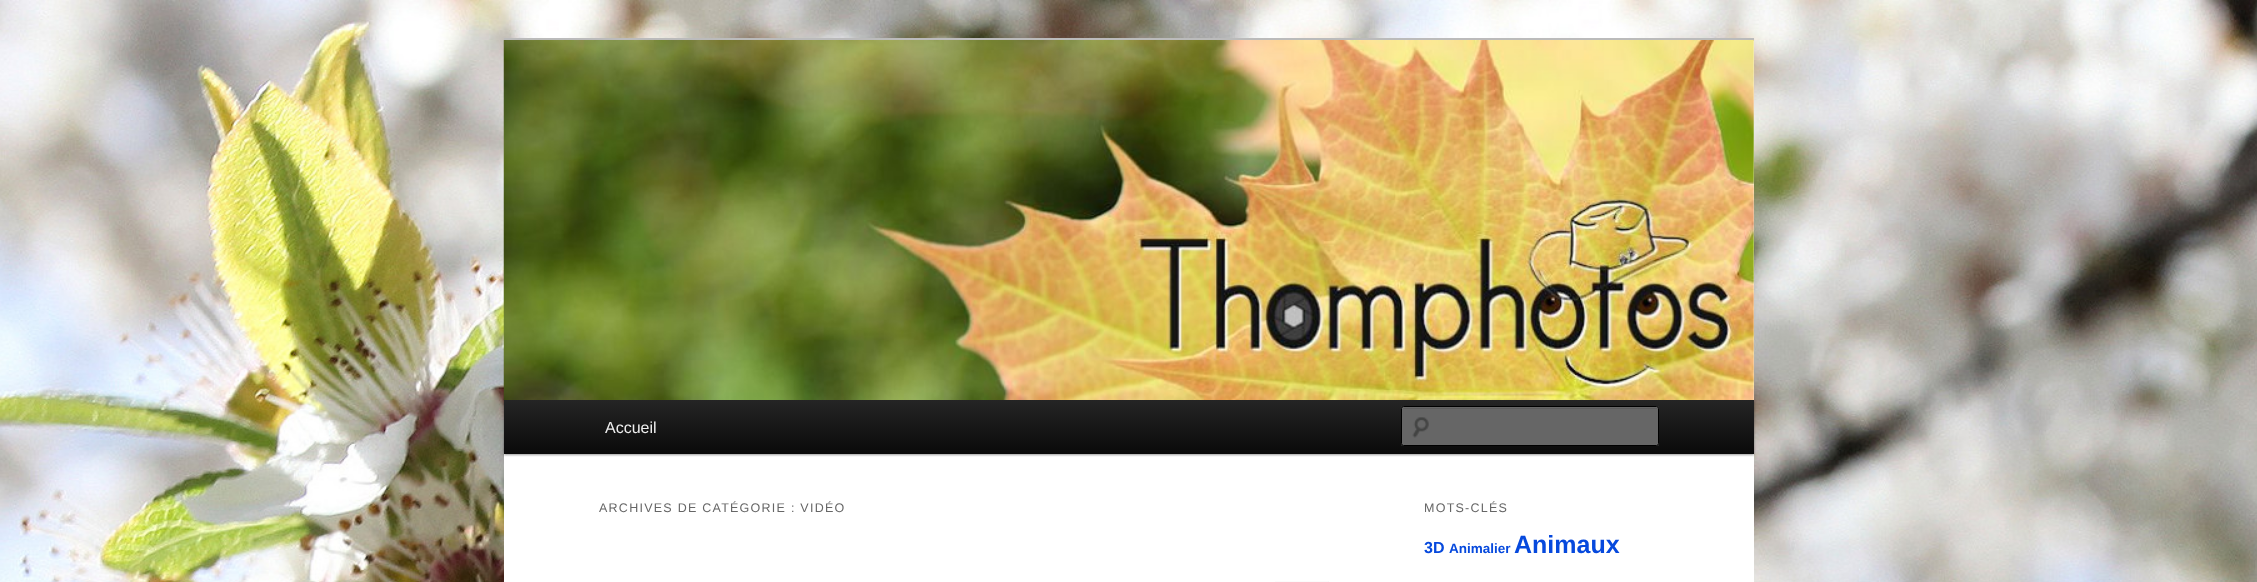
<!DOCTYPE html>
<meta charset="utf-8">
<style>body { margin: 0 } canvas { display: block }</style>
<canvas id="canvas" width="2257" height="582"></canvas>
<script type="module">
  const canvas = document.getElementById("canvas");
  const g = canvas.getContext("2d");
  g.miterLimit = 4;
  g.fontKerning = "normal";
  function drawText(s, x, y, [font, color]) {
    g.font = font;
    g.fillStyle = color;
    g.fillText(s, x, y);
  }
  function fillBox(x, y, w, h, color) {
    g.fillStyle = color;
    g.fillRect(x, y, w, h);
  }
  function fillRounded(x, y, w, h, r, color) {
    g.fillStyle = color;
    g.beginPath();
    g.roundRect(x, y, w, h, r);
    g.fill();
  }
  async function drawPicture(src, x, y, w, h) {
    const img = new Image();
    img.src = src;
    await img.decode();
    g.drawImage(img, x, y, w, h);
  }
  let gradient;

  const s1 = ["16px Liberation Sans", "#EEEEEE"];
  const s2 = ["12.5px Liberation Sans", "#666666"];
  const s3 = ["bold 16px Liberation Sans", "#0649DD"];
  const s4 = ["bold 13.5px Liberation Sans", "#0649DD"];
  const s5 = ["bold 25px Liberation Sans", "#0649DD"];

  fillBox(0, 0, 2257, 582, "#FFFFFF");
  await drawPicture("pic1.png", 0, 0, 2257, 582);
  fillBox(504, 41, 1250, 541, "#FFFFFF");
  fillBox(504, 38, 1250, 3, "#BBBBBB");
  g.fillStyle = "rgba(0, 0, 0, 0.4)";
  g.filter = "blur(1px)";
  g.beginPath();
  g.rect(504, 401, 1250, 54);
  g.fill();
  g.filter = "none";
  await drawPicture("pic2.png", 503, 40, 1251, 360);
  gradient = g.createLinearGradient(1129, 400, 1129, 454);
  gradient.addColorStop(0, "#252525");
  gradient.addColorStop(1, "#0A0A0A");
  g.fillStyle = gradient;
  g.fillRect(504, 400, 1250, 54);
  drawText("Accueil", 605, 433, s1);
  fillRounded(1401, 406, 258, 40, 2.5, "#666666");
  await drawPicture("pic3.png", 1412, 417, 17, 21);
  g.fillStyle = "#5C5C5C";
  g.beginPath();
  g.moveTo(1404, 409);
  g.lineTo(1656, 409);
  g.bezierCurveTo(1657, 409, 1658, 409, 1658, 410);
  g.lineTo(1658, 408);
  g.lineTo(1404, 408);
  g.lineTo(1403, 409);
  g.closePath();
  g.fill();
  g.beginPath();
  g.roundRect(1401.5, 406.5, 257, 39, 2);
  g.strokeStyle = "#000000";
  g.stroke();
  g.letterSpacing = "1.25px";
  drawText("ARCHIVES DE CATÉGORIE : VIDÉO", 599, 512, s2);
  fillBox(1275, 581, 54, 1, "#EEEEEE");
  await drawPicture("pic4.png", 1275, 581, 54, 1);
  drawText("MOTS-CLÉS", 1424, 512, s2);
  g.letterSpacing = "0px";
  drawText("3D", 1424, 553, s3);
  drawText("Animalier", 1449, 553, s4);
  drawText("Animaux", 1514, 553, s5);
</script>
